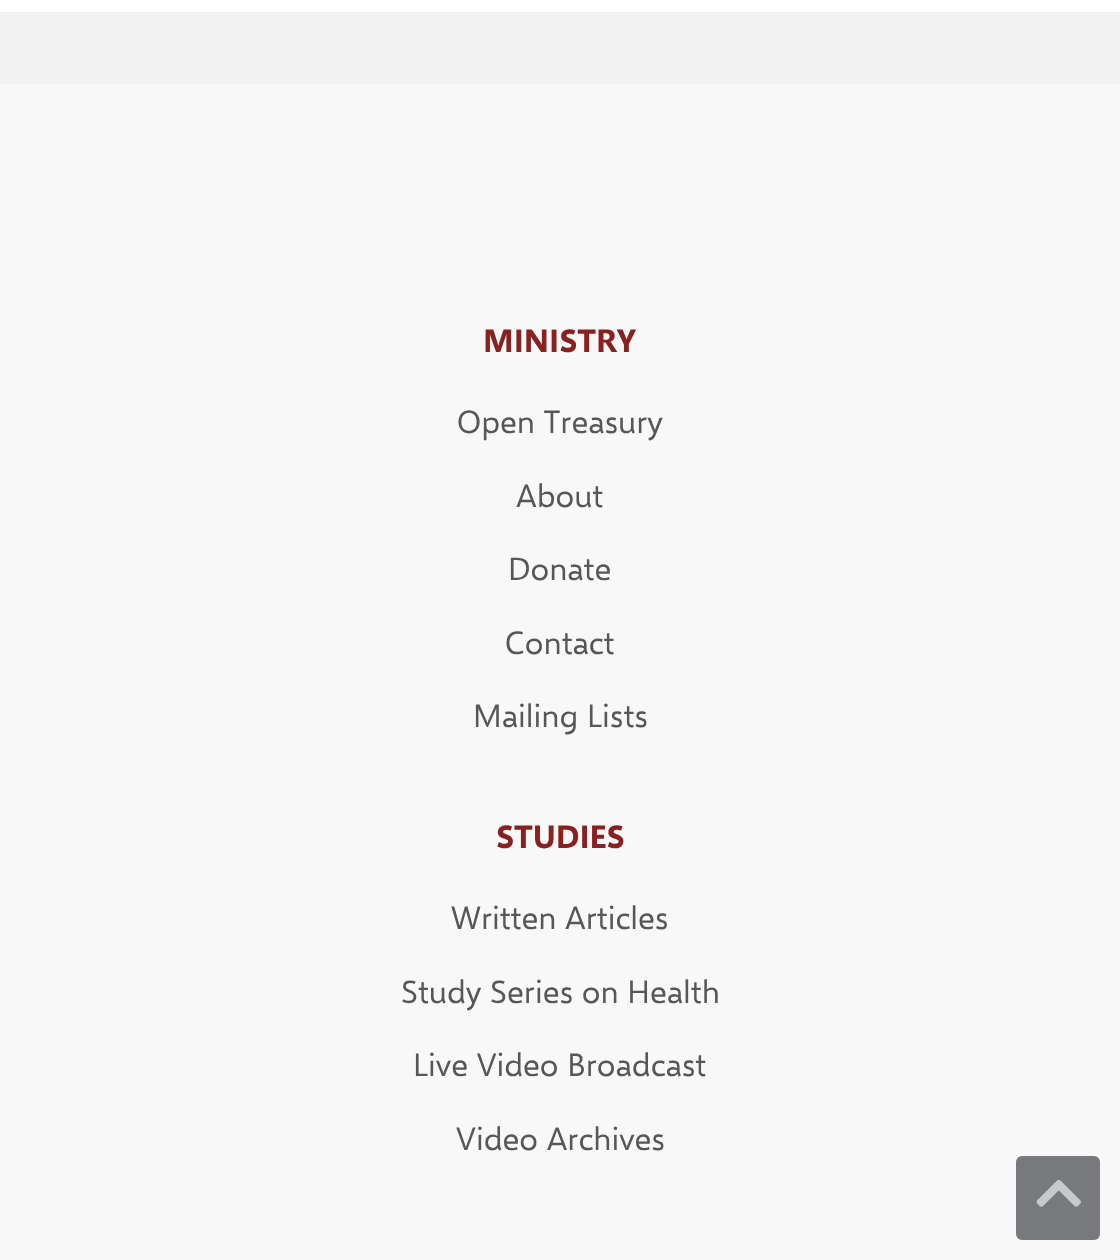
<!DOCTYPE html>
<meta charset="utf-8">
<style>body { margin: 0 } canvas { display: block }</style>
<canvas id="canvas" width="1120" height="1260"></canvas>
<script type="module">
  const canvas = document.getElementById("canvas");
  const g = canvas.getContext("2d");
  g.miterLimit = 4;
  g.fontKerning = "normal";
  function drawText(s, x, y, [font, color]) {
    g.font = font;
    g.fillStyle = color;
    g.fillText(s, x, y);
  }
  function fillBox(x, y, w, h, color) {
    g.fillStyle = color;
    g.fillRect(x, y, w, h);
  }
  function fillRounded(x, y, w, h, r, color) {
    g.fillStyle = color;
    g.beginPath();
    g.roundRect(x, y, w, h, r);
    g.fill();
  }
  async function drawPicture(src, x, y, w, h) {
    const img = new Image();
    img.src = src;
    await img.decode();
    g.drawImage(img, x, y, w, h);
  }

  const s1 = ["bold 32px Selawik", "#8A2121"];
  const s2 = ["32px Selawik", "#575757"];

  fillBox(0, 0, 1120, 1260, "#F2F2F2");
  fillBox(0, 0, 1120, 12, "#FFFFFF");
  fillBox(0, 84, 1120, 1176, "#F8F8F8");
  drawText("MINISTRY", 483, 352, s1);
  drawText("Open Treasury", 457, 433, s2);
  drawText("About", 516, 507, s2);
  drawText("Donate", 508, 580, s2);
  drawText("Contact", 505, 654, s2);
  drawText("Mailing Lists", 473, 727, s2);
  drawText("STUDIES", 496, 848, s1);
  drawText("Written Articles", 451, 929, s2);
  drawText("Study Series on Health", 401, 1003, s2);
  drawText("Live Video Broadcast", 413, 1076, s2);
  drawText("Video Archives", 456, 1150, s2);
  fillRounded(1016, 1156, 84, 84, 6, "#77797C");
  await drawPicture("pic1.png", 1036, 1179, 45, 28);
</script>
